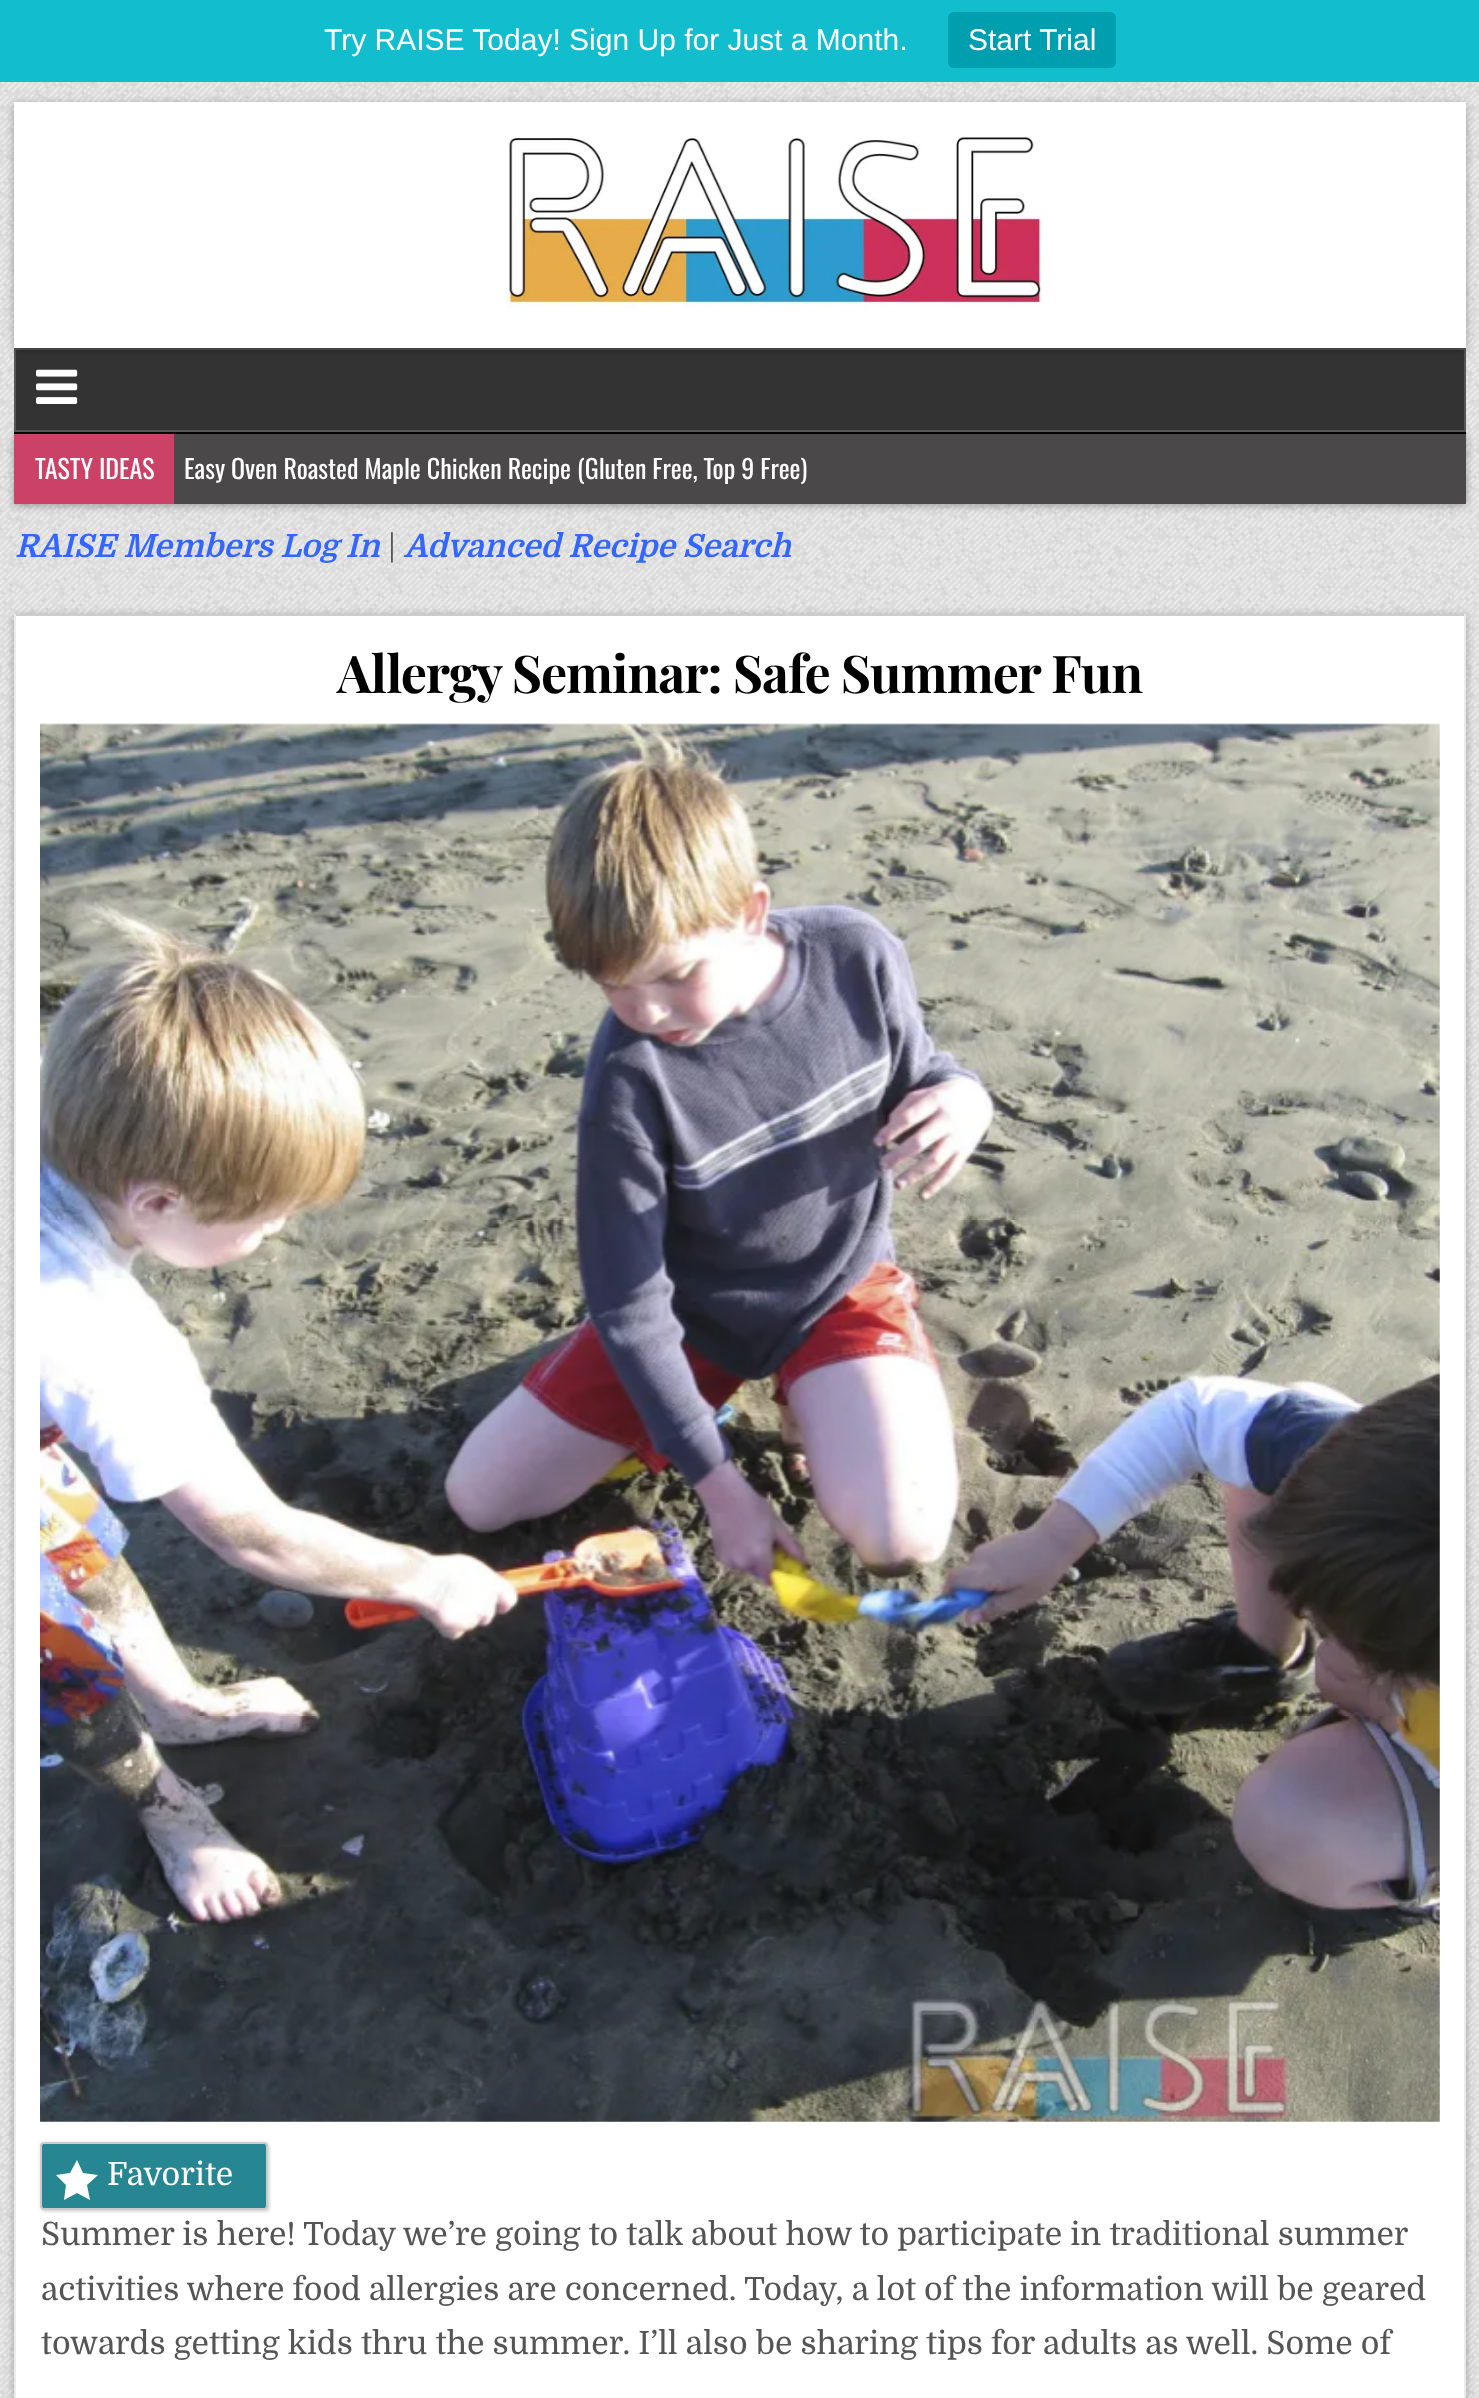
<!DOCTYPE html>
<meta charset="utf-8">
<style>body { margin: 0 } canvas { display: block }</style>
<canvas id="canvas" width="1479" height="2398"></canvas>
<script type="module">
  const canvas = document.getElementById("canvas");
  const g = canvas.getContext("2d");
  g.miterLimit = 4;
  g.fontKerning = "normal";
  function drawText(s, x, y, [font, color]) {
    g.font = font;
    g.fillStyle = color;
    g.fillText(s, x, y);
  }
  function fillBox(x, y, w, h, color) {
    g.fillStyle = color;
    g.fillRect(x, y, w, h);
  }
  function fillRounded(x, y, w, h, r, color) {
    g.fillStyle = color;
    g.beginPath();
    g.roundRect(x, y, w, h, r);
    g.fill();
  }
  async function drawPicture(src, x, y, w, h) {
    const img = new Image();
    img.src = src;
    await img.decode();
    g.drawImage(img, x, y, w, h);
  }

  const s1 = ["30px Liberation Sans", "#FFFFFF"];
  const s2 = ["26px Oswald", "#FFFFFF"];
  const s3 = ["italic bold 32px Domine", "#3366FF"];
  const s4 = ["32px Domine", "#555555"];
  const s5 = ["bold 52px Playfair Display", "#000000"];
  const s6 = ["32px Domine", "#FFFFFF"];

  fillBox(0, 0, 1479, 2398, "#FFFFFF");
  await drawPicture("pic1.png", 0, 82, 1479, 2316);
  fillBox(0, 0, 1479, 82, "#12BECE");
  drawText("Try RAISE Today! Sign Up for Just a Month.", 324, 50, s1);
  fillRounded(948, 12, 168, 56, 6, "#009FAF");
  drawText("Start Trial", 968, 50, s1);
  g.fillStyle = "rgba(0, 0, 0, 0.3)";
  g.filter = "blur(4px)";
  g.beginPath();
  g.rect(14, 434, 1452, 72);
  g.fill();
  g.filter = "none";
  g.fillStyle = "#333333";
  g.beginPath();
  g.rect(15, 349, 1450, 82);
  g.fill();
  g.strokeStyle = "#555555";
  g.lineWidth = 2;
  g.stroke();
  g.fillStyle = "rgba(0, 0, 0, 0.3)";
  g.filter = "blur(4px)";
  g.beginPath();
  g.rect(14, 104, 1452, 246);
  g.fill();
  g.filter = "none";
  fillBox(14, 102, 1452, 246, "#FFFFFF");
  await drawPicture("pic2.png", 506, 136, 538, 172);
  await drawPicture("pic3.png", 36, 369, 42, 35);
  fillBox(174, 434, 1292, 70, "#4A4848");
  fillBox(14, 432, 1452, 2, "#040404");
  fillBox(14, 434, 160, 70, "#CC4166");
  drawText("TASTY IDEAS", 35, 479, s2);
  drawText("Easy Oven Roasted Maple Chicken Recipe (Gluten Free, Top 9 Free)", 184, 479, s2);
  drawText("RAISE Members Log In", 15, 557, s3);
  drawText("|", 388, 557, s4);
  drawText("Advanced Recipe Search", 404, 557, s3);
  g.fillStyle = "rgba(0, 0, 0, 0.3)";
  g.filter = "blur(4px)";
  g.beginPath();
  g.rect(14, 616, 1452, 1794);
  g.fill();
  g.filter = "none";
  fillBox(16, 616, 1448, 1782, "#FFFFFF");
  fillBox(14, 614, 1452, 2, "#CCCCCC");
  fillBox(1464, 614, 2, 1784, "#ECECEC");
  fillBox(14, 614, 2, 1784, "#ECECEC");
  g.letterSpacing = "-1px";
  drawText("Allergy Seminar: Safe Summer Fun", 337, 693, s5);
  await drawPicture("pic4.png", 40, 723, 1400, 1399);
  g.fillStyle = "rgba(0, 0, 0, 0.1)";
  g.filter = "blur(1px)";
  g.beginPath();
  g.roundRect(42, 2144, 228, 68, 4);
  g.fill();
  g.filter = "none";
  g.filter = "blur(2px)";
  g.beginPath();
  g.roundRect(40, 2142, 228, 68, 4);
  g.fill();
  g.filter = "none";
  g.fillStyle = "#268793";
  g.beginPath();
  g.roundRect(41, 2143, 226, 66, 3);
  g.fill();
  g.strokeStyle = "#CCCCCC";
  g.stroke();
  g.fillStyle = "#FFFFFF";
  g.beginPath();
  g.moveTo(98, 2175);
  g.lineTo(83, 2173);
  g.lineTo(77, 2160);
  g.lineTo(70, 2173);
  g.lineTo(56, 2175);
  g.lineTo(66, 2185);
  g.lineTo(64, 2200);
  g.lineTo(77, 2193);
  g.lineTo(90, 2200);
  g.lineTo(87, 2185);
  g.closePath();
  g.fill();
  g.letterSpacing = "0px";
  drawText("Favorite", 107, 2185, s6);
  drawText("Summer is here! Today we’re going to talk about how to participate in traditional summer", 41, 2245, s4);
  drawText("activities where food allergies are concerned. Today, a lot of the information will be geared", 41, 2300, s4);
  drawText("towards getting kids thru the summer. I’ll also be sharing tips for adults as well. Some of", 41, 2354, s4);
</script>
